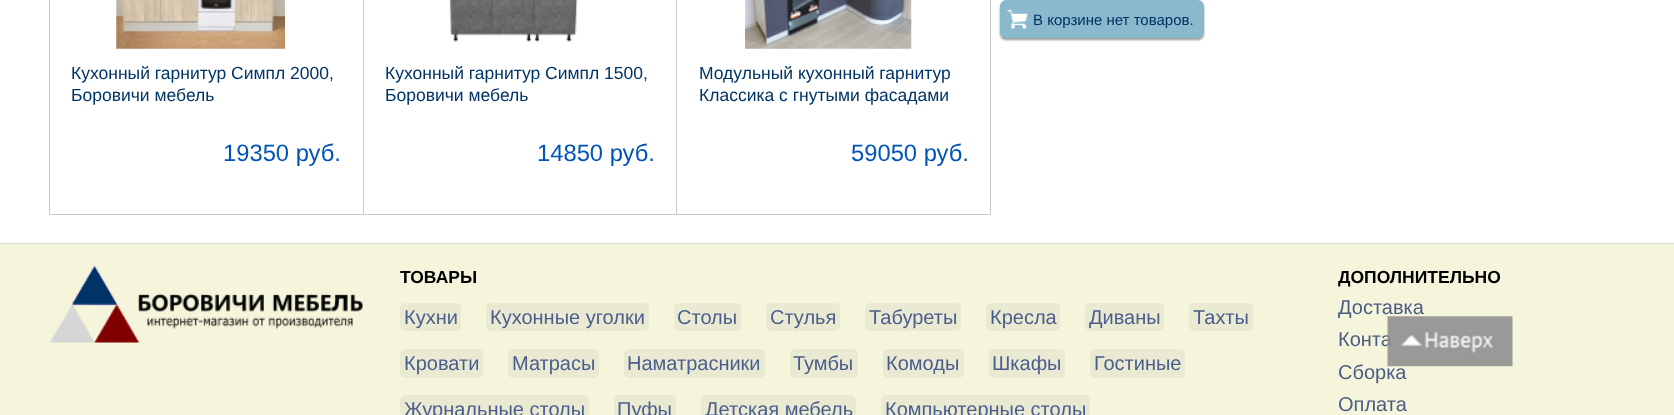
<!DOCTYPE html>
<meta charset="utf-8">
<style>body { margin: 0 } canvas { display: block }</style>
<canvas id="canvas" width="1674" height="415"></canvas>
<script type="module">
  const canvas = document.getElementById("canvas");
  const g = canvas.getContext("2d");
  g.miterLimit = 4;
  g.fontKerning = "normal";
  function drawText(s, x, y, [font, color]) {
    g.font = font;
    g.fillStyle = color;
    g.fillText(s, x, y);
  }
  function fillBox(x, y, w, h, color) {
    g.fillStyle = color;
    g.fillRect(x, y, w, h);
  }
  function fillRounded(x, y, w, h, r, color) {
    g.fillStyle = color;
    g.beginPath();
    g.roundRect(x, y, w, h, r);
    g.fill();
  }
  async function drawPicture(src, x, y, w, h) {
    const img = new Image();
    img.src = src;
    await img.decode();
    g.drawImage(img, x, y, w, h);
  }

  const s1 = ["15px Liberation Sans", "#003366"];
  const s2 = ["17.5px Liberation Sans", "#003366"];
  const s3 = ["23.75px Liberation Sans", "#0054B9"];
  const s4 = ["bold 17.5px Liberation Sans", "#000000"];
  const s5 = ["20px Liberation Sans", "#4A5D8F"];
  const s6 = ["20px Liberation Sans", "#4A5D84"];

  fillBox(0, 0, 1674, 415, "#FFFFFF");
  g.fillStyle = "rgba(0, 0, 0, 0.4)";
  g.filter = "blur(1px)";
  g.beginPath();
  g.roundRect(1000, 3, 204, 37, 6);
  g.fill();
  g.filter = "none";
  fillRounded(1000, 0, 204, 38, 6, "#8AB8CC");
  await drawPicture("pic1.png", 1007, 9, 21, 20);
  drawText("В корзине нет товаров.", 1033, 25, s1);
  g.beginPath();
  g.roundRect(49.5, -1.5, 314, 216, 0.5);
  g.strokeStyle = "#C9C9C9";
  g.stroke();
  await drawPicture("pic2.png", 116, 0, 169, 49);
  drawText("Кухонный гарнитур Симпл 2000,", 71, 79, s2);
  drawText("Боровичи мебель", 71, 101, s2);
  drawText("19350 руб.", 223, 161, s3);
  g.fillStyle = "#FFFFFF";
  g.beginPath();
  g.roundRect(363.5, -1.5, 314, 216, 0.5);
  g.fill();
  g.stroke();
  await drawPicture("pic3.png", 449, 0, 129, 42);
  drawText("Кухонный гарнитур Симпл 1500,", 385, 79, s2);
  drawText("Боровичи мебель", 385, 101, s2);
  drawText("14850 руб.", 537, 161, s3);
  g.fillStyle = "#FFFFFF";
  g.beginPath();
  g.roundRect(676.5, -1.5, 314, 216, 0.5);
  g.fill();
  g.stroke();
  await drawPicture("pic4.png", 745, 0, 167, 49);
  drawText("Модульный кухонный гарнитур", 699, 79, s2);
  drawText("Классика с гнутыми фасадами", 699, 101, s2);
  drawText("59050 руб.", 851, 161, s3);
  fillBox(0, 244, 1674, 171, "#F5F5DC");
  fillBox(0, 243, 1674, 1, "#DBDBDB");
  await drawPicture("pic5.png", 50, 266, 313, 77);
  drawText("ТОВАРЫ", 400, 283, s4);
  fillRounded(400, 303, 61, 28, 5, "#EAEAD2");
  drawText("Кухни", 404, 324, s5);
  fillRounded(486, 303, 163, 28, 5, "#EAEAD2");
  drawText("Кухонные уголки", 490, 324, s5);
  fillRounded(674, 303, 67, 28, 5, "#EAEAD2");
  drawText("Столы", 677, 324, s5);
  fillRounded(766, 303, 74, 28, 5, "#EAEAD2");
  drawText("Стулья", 770, 324, s5);
  fillRounded(865, 303, 96, 28, 5, "#EAEAD2");
  drawText("Табуреты", 869, 324, s5);
  fillRounded(986, 303, 74, 28, 5, "#EAEAD2");
  drawText("Кресла", 990, 324, s5);
  fillRounded(1085, 303, 79, 28, 5, "#EAEAD2");
  drawText("Диваны", 1089, 324, s5);
  fillRounded(1189, 303, 64, 28, 5, "#EAEAD2");
  drawText("Тахты", 1193, 324, s5);
  fillRounded(400, 349, 83, 29, 5, "#EAEAD2");
  drawText("Кровати", 404, 370, s5);
  fillRounded(508, 349, 91, 29, 5, "#EAEAD2");
  drawText("Матрасы", 512, 370, s5);
  fillRounded(624, 349, 141, 29, 5, "#EAEAD2");
  drawText("Наматрасники", 627, 370, s5);
  fillRounded(790, 349, 68, 29, 5, "#EAEAD2");
  drawText("Тумбы", 793, 370, s5);
  fillRounded(883, 349, 81, 29, 5, "#EAEAD2");
  drawText("Комоды", 886, 370, s5);
  fillRounded(989, 349, 76, 29, 5, "#EAEAD2");
  drawText("Шкафы", 992, 370, s5);
  fillRounded(1090, 349, 95, 29, 5, "#EAEAD2");
  drawText("Гостиные", 1094, 370, s5);
  fillRounded(400, 395, 189, 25, 5, "#EAEAD2");
  drawText("Журнальные столы", 404, 416, s5);
  fillRounded(614, 395, 62, 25, 5, "#EAEAD2");
  drawText("Пуфы", 617, 416, s5);
  fillRounded(701, 395, 155, 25, 5, "#EAEAD2");
  drawText("Детская мебель", 705, 416, s5);
  fillRounded(881, 395, 209, 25, 5, "#EAEAD2");
  drawText("Компьютерные столы", 885, 416, s5);
  drawText("ДОПОЛНИТЕЛЬНО", 1338, 283, s4);
  drawText("Доставка", 1338, 314, s6);
  drawText("Конта", 1338, 346, s6);
  drawText("Сборка", 1338, 379, s6);
  drawText("Оплата", 1338, 411, s6);
  await drawPicture("pic6.png", 1387, 316, 126, 51);
</script>
